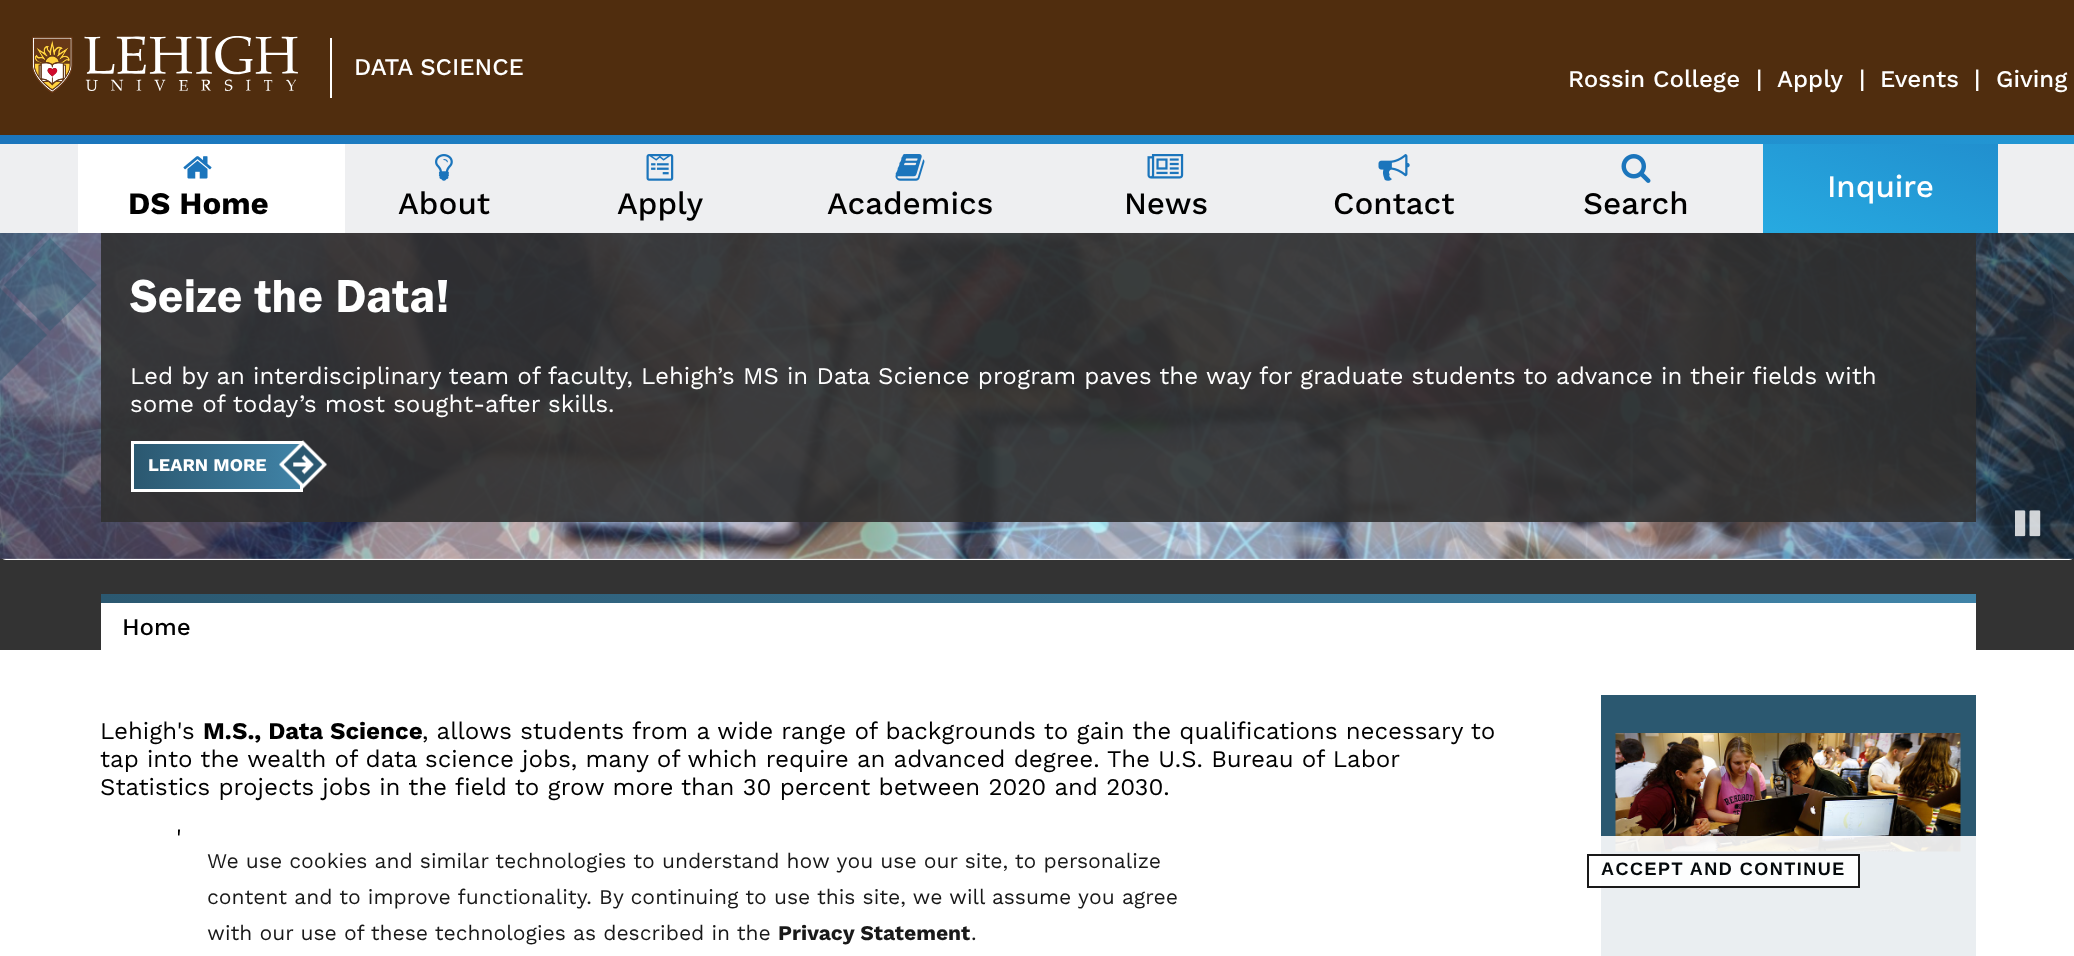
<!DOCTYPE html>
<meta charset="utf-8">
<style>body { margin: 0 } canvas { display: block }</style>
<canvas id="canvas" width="2074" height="956"></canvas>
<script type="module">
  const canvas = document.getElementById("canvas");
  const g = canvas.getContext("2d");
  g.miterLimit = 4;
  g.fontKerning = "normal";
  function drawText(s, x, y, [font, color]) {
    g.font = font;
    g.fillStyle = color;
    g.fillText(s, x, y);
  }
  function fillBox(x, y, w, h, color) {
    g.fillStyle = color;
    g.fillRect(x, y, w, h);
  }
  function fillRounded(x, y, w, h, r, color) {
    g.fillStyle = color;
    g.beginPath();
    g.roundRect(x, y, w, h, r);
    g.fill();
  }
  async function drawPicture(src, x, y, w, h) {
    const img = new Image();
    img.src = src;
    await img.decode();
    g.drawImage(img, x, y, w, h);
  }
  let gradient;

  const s1 = ["500 24px Work Sans", "#FFFFFF"];
  const s2 = ["bold 31.25px Work Sans", "#000000"];
  const s3 = ["500 31.25px Work Sans", "#000000"];
  const s4 = ["500 31.25px Work Sans", "#FFFFFF"];
  const s5 = ["48px Franklin Gothic", "#FFFFFF"];
  const s6 = ["24px Work Sans", "#FFFFFF"];
  const s7 = ["bold 18px Work Sans", "#FFFFFF"];
  const s8 = ["500 24px Work Sans", "#000000"];
  const s9 = ["24px Work Sans", "#000000"];
  const s10 = ["bold 24px Work Sans", "#000000"];
  const s11 = ["21px Work Sans", "#191919"];
  const s12 = ["bold 21px Work Sans", "#191919"];
  const s13 = ["bold 18px Liberation Sans", "#04090B"];

  fillBox(0, 0, 2074, 956, "#FFFFFF");
  fillBox(0, 558, 2074, 92, "#333333");
  fillRounded(0, 18, 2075, 542, 6, "#FFFFFF");
  fillBox(0, 0, 2074, 135, "#502D0E");
  await drawPicture("pic1.png", 32, 36, 266, 57);
  fillBox(330, 38, 2, 60, "#FFFFFF");
  drawText("DATA SCIENCE", 354, 75, s1);
  drawText("Rossin College", 1568, 87, s1);
  drawText("|", 1756, 87, s1);
  drawText("Apply", 1777, 87, s1);
  drawText("|", 1859, 87, s1);
  drawText("Events", 1880, 87, s1);
  drawText("|", 1974, 87, s1);
  drawText("Giving", 1996, 87, s1);
  gradient = g.createLinearGradient(0, 140, 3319, 139);
  gradient.addColorStop(0, "#1B75BC");
  gradient.addColorStop(1, "#27AAE1");
  g.fillStyle = gradient;
  g.fillRect(0, 135, 2074, 9);
  await drawPicture("pic9.png", 0, 233, 2074, 326);
  g.fillStyle = "rgba(43, 88, 112, 0.42)";
  g.beginPath();
  g.moveTo(47, 234);
  g.lineTo(0, 188);
  g.lineTo(-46, 234);
  g.lineTo(0, 281);
  g.closePath();
  g.fill();
  g.beginPath();
  g.moveTo(1979, 190);
  g.lineTo(2025, 144);
  g.lineTo(2072, 190);
  g.lineTo(2025, 237);
  g.closePath();
  g.fill();
  g.beginPath();
  g.moveTo(2029, 240);
  g.lineTo(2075, 194);
  g.lineTo(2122, 240);
  g.lineTo(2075, 287);
  g.closePath();
  g.fill();
  fillBox(0, 144, 2074, 89, "#EEEFF1");
  fillBox(78, 144, 267, 89, "#FFFFFF");
  await drawPicture("pic2.png", 183, 156, 29, 23);
  drawText("DS Home", 128, 214, s2);
  await drawPicture("pic3.png", 435, 154, 18, 27);
  drawText("About", 398, 214, s3);
  await drawPicture("pic4.png", 646, 154, 28, 27);
  drawText("Apply", 617, 214, s3);
  await drawPicture("pic5.png", 895, 154, 30, 27);
  drawText("Academics", 827, 214, s3);
  await drawPicture("pic6.png", 1147, 154, 37, 25);
  drawText("News", 1124, 214, s3);
  await drawPicture("pic7.png", 1378, 154, 32, 27);
  drawText("Contact", 1333, 214, s3);
  await drawPicture("pic8.png", 1621, 154, 30, 29);
  drawText("Search", 1583, 214, s3);
  gradient = g.createLinearGradient(1851, 266, 1968, -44);
  gradient.addColorStop(0, "#27AAE1");
  gradient.addColorStop(1, "#1B75BC");
  g.fillStyle = gradient;
  g.fillRect(1763, 144, 235, 89);
  drawText("Inquire", 1827, 197, s4);
  g.fillStyle = "rgba(43, 88, 112, 0.42)";
  g.beginPath();
  g.moveTo(97, 285);
  g.lineTo(50, 238);
  g.lineTo(4, 285);
  g.lineTo(50, 331);
  g.closePath();
  g.fill();
  g.beginPath();
  g.moveTo(47, 335);
  g.lineTo(0, 288);
  g.lineTo(-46, 335);
  g.lineTo(0, 381);
  g.closePath();
  g.fill();
  fillBox(101, 233, 1875, 289, "rgba(48, 48, 48, 0.9)");
  drawText("Seize the Data!", 130, 312, s5);
  drawText("Led by an interdisciplinary team of faculty, Lehigh’s MS in Data Science program paves the way for graduate students to advance in their fields with", 130, 384, s6);
  drawText("some of today’s most sought-after skills.", 130, 412, s6);
  gradient = g.createLinearGradient(134, 467, 300, 467);
  gradient.addColorStop(0, "#2B5870");
  gradient.addColorStop(1, "#4083A7");
  g.fillStyle = gradient;
  g.fillRect(134, 444, 166, 45);
  g.strokeStyle = "#FFFFFF";
  g.lineWidth = 3;
  g.strokeRect(132.5, 442.5, 169, 48);
  drawText("LEARN MORE", 148, 471, s7);
  await drawPicture("pic10.png", 279, 440, 48, 49);
  await drawPicture("pic11.png", 2015, 510, 26, 27);
  gradient = g.createLinearGradient(101, 599, 1976, 598);
  gradient.addColorStop(0, "#2B5870");
  gradient.addColorStop(1, "#4083A7");
  g.fillStyle = gradient;
  g.fillRect(101, 594, 1875, 9);
  fillBox(101, 603, 1875, 47, "#FFFFFF");
  drawText("Home", 122, 635, s8);
  drawText("Lehigh's", 100, 739, s9);
  drawText("M.S., Data Science", 203, 739, s10);
  drawText(", allows students from a wide range of backgrounds to gain the qualifications necessary to", 422, 739, s9);
  drawText("tap into the wealth of data science jobs, many of which require an advanced degree. The U.S. Bureau of Labor", 100, 767, s9);
  drawText("Statistics projects jobs in the field to grow more than 30 percent between 2020 and 2030.", 100, 795, s9);
  drawText("'", 176, 846, s9);
  fillBox(1601, 695, 375, 261, "#2B5870");
  await drawPicture("pic12.png", 1615, 733, 346, 119);
  fillBox(1601, 836, 375, 120, "rgba(255, 255, 255, 0.9)");
  drawText("We use cookies and similar technologies to understand how you use our site, to personalize", 207, 868, s11);
  drawText("content and to improve functionality. By continuing to use this site, we will assume you agree", 207, 904, s11);
  drawText("with our use of these technologies as described in the", 207, 940, s11);
  drawText("Privacy Statement", 778, 940, s12);
  drawText(".", 971, 940, s11);
  fillBox(1601, 857, 257, 29, "rgba(255, 255, 255, 0.9)");
  fillBox(1601, 856, 258, 1, "#FFFFFF");
  g.strokeStyle = "#191919";
  g.lineWidth = 2;
  g.strokeRect(1588, 855, 271, 32);
  g.letterSpacing = "1.5px";
  drawText("ACCEPT AND CONTINUE", 1601, 875, s13);
</script>
